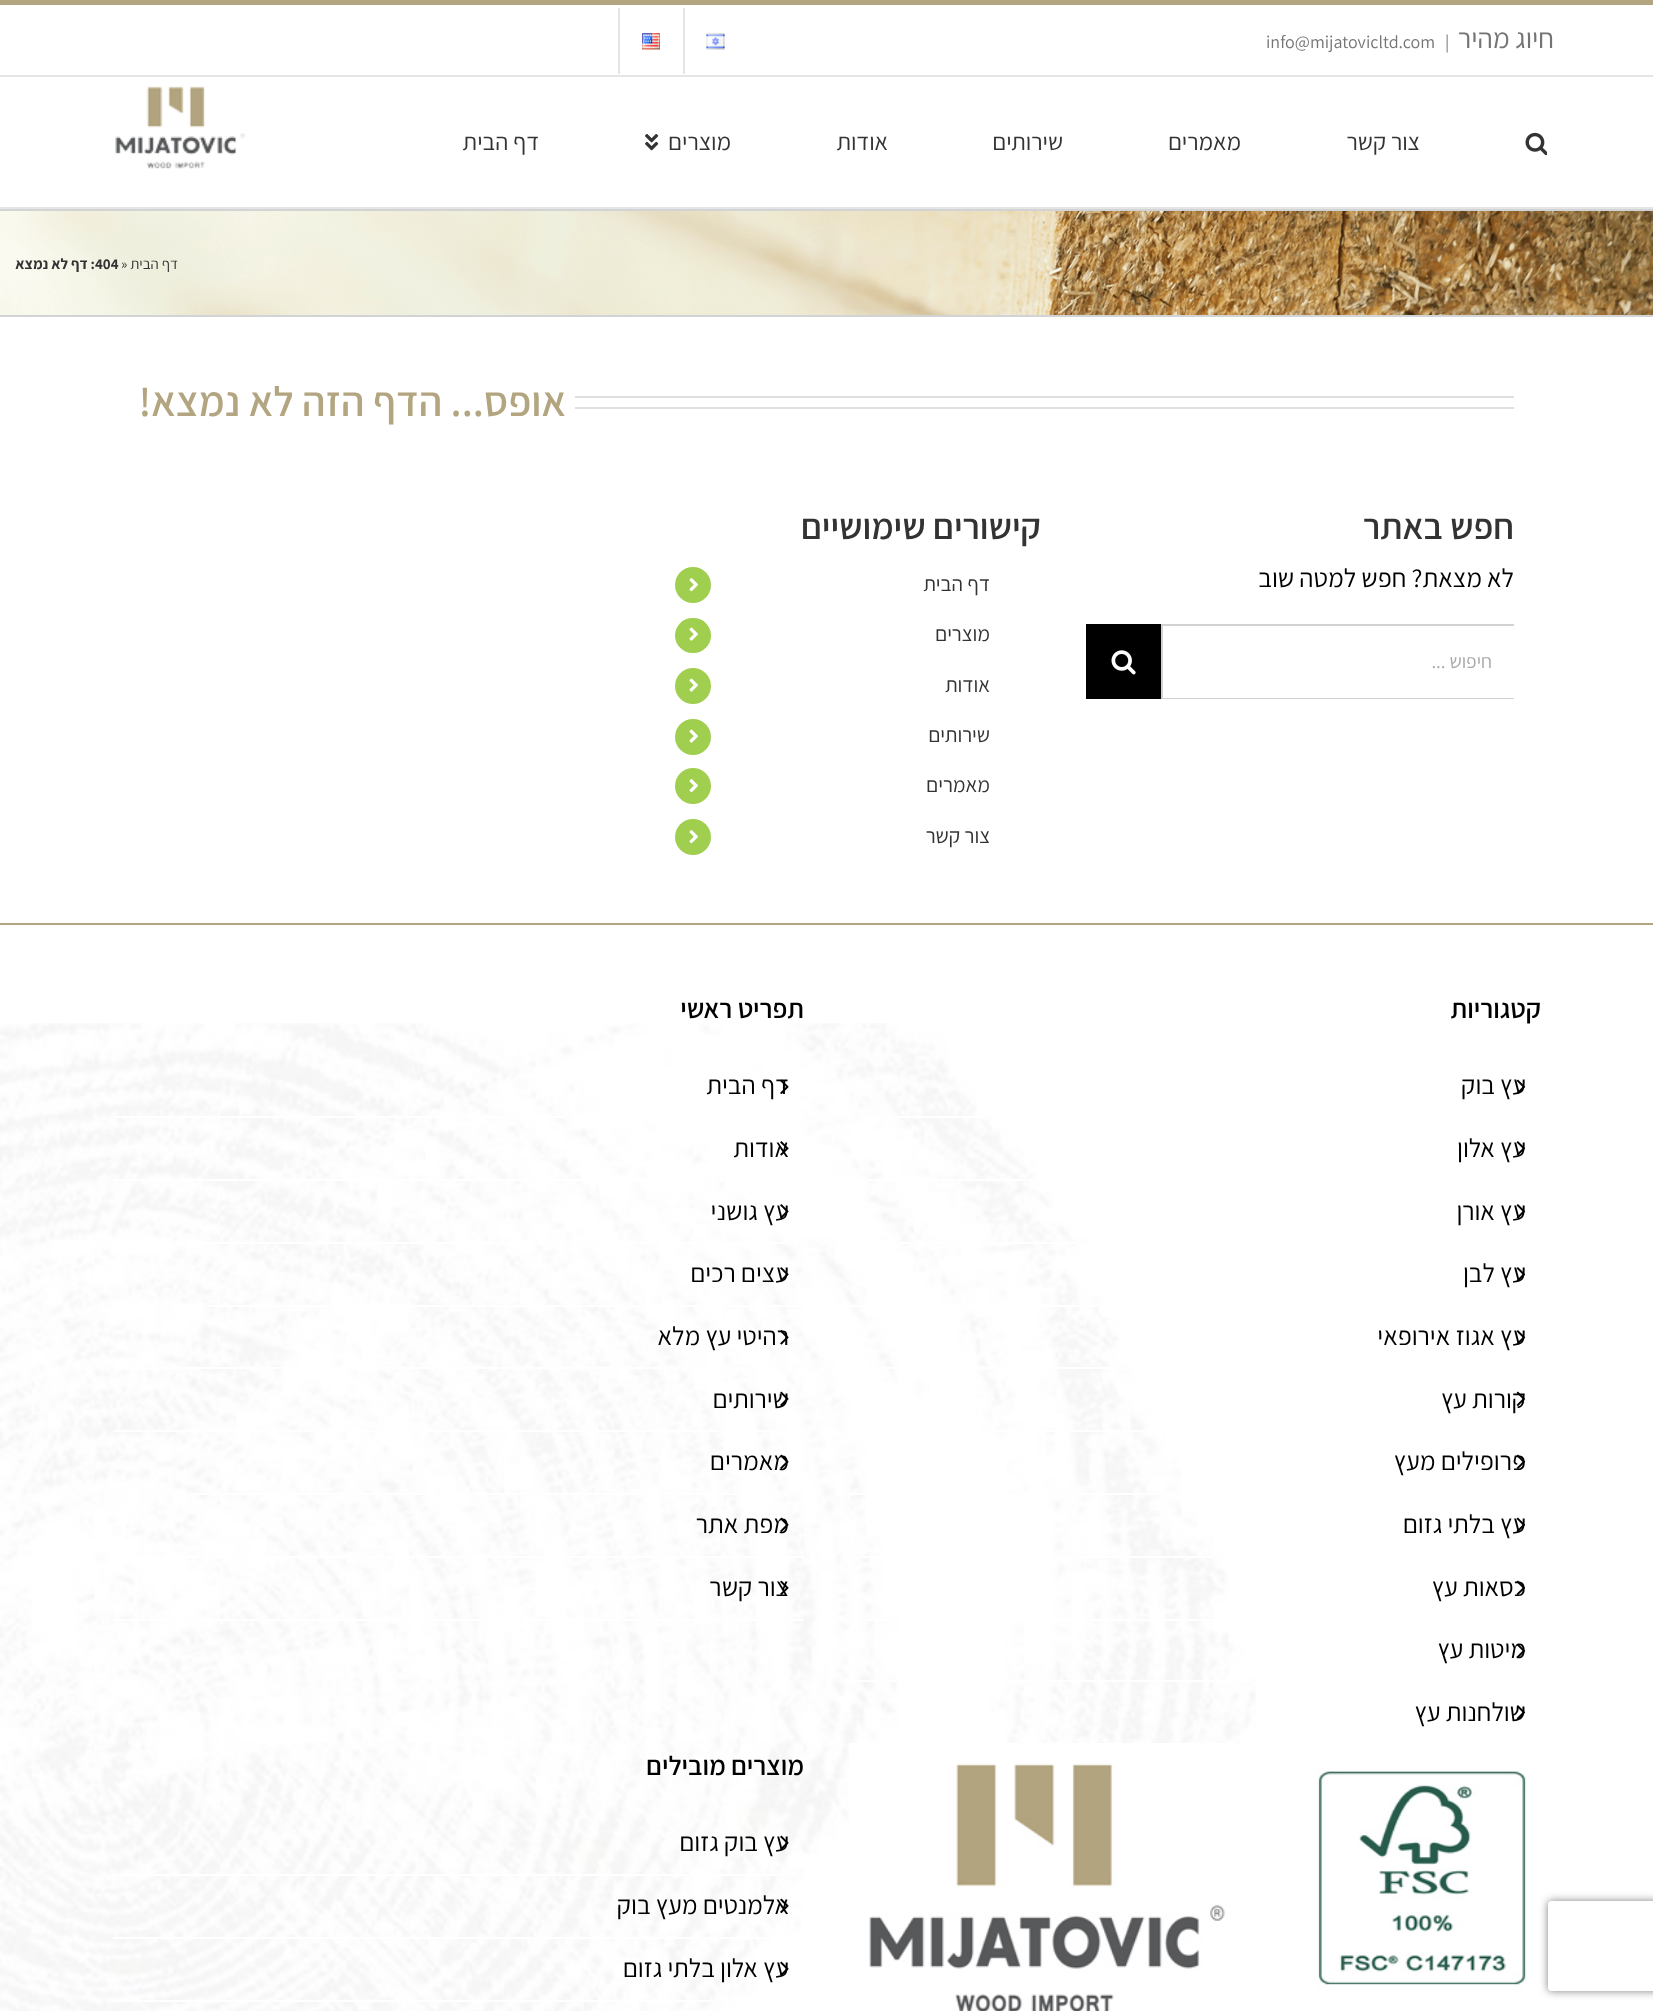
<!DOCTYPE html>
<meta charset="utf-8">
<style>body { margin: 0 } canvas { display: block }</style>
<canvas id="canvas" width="1653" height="2011"></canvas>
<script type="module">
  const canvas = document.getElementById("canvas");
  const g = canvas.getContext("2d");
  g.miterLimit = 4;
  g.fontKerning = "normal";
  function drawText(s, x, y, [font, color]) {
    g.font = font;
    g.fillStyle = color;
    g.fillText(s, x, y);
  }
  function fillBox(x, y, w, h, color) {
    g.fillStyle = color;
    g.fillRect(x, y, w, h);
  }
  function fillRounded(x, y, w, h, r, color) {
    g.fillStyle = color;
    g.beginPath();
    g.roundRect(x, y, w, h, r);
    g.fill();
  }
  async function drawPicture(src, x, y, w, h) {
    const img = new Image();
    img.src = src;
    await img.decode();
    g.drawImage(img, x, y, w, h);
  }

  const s1 = ["28px Assistant", "#747474"];
  const s2 = ["18px Assistant", "#747474"];
  const s3 = ["24px Assistant", "#333333"];
  const s4 = ["15px Assistant", "#333333"];
  const s5 = ["bold 15px Assistant", "#333333"];
  const s6 = ["600 42px Assistant", "#B2A580"];
  const s7 = ["600 36px Assistant", "#333333"];
  const s8 = ["26px Assistant", "#000000"];
  const s9 = ["19.5px Assistant", "#AAA9A9"];
  const s10 = ["21px Assistant", "#333333"];
  const s11 = ["600 27px Assistant", "#000000"];

  fillBox(0, 0, 1653, 2011, "#FFFFFF");
  g.save();
  g.beginPath();
  g.moveTo(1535, 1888);
  g.lineTo(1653, 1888);
  g.lineTo(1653, 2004);
  g.lineTo(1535, 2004);
  g.closePath();
  g.moveTo(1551, 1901);
  g.lineTo(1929, 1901);
  g.bezierCurveTo(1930.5, 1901, 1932, 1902.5, 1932, 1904);
  g.lineTo(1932, 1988);
  g.bezierCurveTo(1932, 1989.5, 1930.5, 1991, 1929, 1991);
  g.lineTo(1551, 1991);
  g.bezierCurveTo(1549.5, 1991, 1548, 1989.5, 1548, 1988);
  g.lineTo(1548, 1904);
  g.bezierCurveTo(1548, 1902.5, 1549.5, 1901, 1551, 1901);
  g.closePath();
  g.clip("evenodd");
  g.fillStyle = "#808080";
  g.filter = "blur(4px)";
  g.beginPath();
  g.roundRect(1548, 1901, 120, 90, 3);
  g.fill();
  g.filter = "none";
  g.restore();
  fillBox(0, 0, 1653, 5, "#B2A580");
  fillBox(0, 75, 1653, 2, "#E5E5E5");
  g.direction = "rtl";
  drawText("חיוג מהיר", 1554, 48, s1);
  g.direction = "ltr";
  drawText("|", 1445, 48, s2);
  drawText("info@mijatovicltd.com", 1266, 48, s2);
  fillBox(683, 8, 2, 66, "#E5E5E5");
  await drawPicture("pic1.png", 706, 33, 19, 17);
  fillBox(618, 8, 2, 66, "#E5E5E5");
  await drawPicture("pic2.png", 642, 33, 18, 17);
  fillBox(0, 207, 1653, 2, "#E5E5E5");
  await drawPicture("pic3.png", 1525, 132, 22, 24);
  g.direction = "rtl";
  drawText("צור קשר", 1420, 150, s3);
  drawText("מאמרים", 1241, 150, s3);
  drawText("שירותים", 1063, 150, s3);
  drawText("אודות", 888, 150, s3);
  drawText("מוצרים", 731, 150, s3);
  await drawPicture("pic4.png", 645, 134, 14, 17);
  drawText("דף הבית", 539, 150, s3);
  await drawPicture("pic5.png", 115, 86, 131, 83);
  await drawPicture("pic6.png", 0, 211, 1653, 104);
  fillBox(0, 209, 1653, 2, "#D2D3D4");
  fillBox(0, 315, 1653, 2, "#D2D3D4");
  drawText("דף הבית", 178, 269, s4);
  g.direction = "ltr";
  drawText("»", 121, 269, s4);
  drawText("404", 95, 269, s5);
  g.direction = "rtl";
  drawText(": דף לא נמצא", 95, 269, s5);
  fillBox(575, 396, 939, 2, "#E0DEDE");
  fillBox(575, 407, 939, 2, "#E0DEDE");
  drawText("אופס... הדף הזה לא נמצא!", 566, 416, s6);
  drawText("חפש באתר", 1514, 539, s7);
  drawText("לא מצאת? חפש למטה שוב", 1514, 587, s8);
  fillBox(1161, 624, 353, 2, "#D2D2D2");
  fillBox(1161, 698, 353, 1, "#D2D2D2");
  fillBox(1161, 624, 2, 75, "#D2D2D2");
  drawText("חיפוש ...", 1492, 668, s9);
  fillBox(1086, 624, 75, 75, "#000000");
  await drawPicture("pic7.png", 1111, 650, 25, 25);
  drawText("קישורים שימושיים", 1041, 539, s7);
  drawText("דף הבית", 990, 591, s10);
  g.fillStyle = "#A0CE4E";
  g.beginPath();
  g.arc(693, 585, 18, 0, Math.PI * 2);
  g.fill();
  await drawPicture("pic8.png", 689, 578, 9, 14);
  drawText("מוצרים", 990, 641, s10);
  fillRounded(675, 618, 36, 35, 17.5, "#A0CE4E");
  await drawPicture("pic9.png", 689, 627, 9, 14);
  drawText("אודות", 990, 692, s10);
  g.fillStyle = "#A0CE4E";
  g.beginPath();
  g.arc(693, 686, 18, 0, Math.PI * 2);
  g.fill();
  await drawPicture("pic9.png", 689, 678, 9, 14);
  drawText("שירותים", 990, 742, s10);
  g.fillStyle = "#A0CE4E";
  g.beginPath();
  g.arc(693, 737, 18, 0, Math.PI * 2);
  g.fill();
  await drawPicture("pic9.png", 689, 729, 9, 14);
  drawText("מאמרים", 990, 792, s10);
  g.fillStyle = "#A0CE4E";
  g.beginPath();
  g.arc(693, 786, 18, 0, Math.PI * 2);
  g.fill();
  await drawPicture("pic8.png", 689, 779, 9, 14);
  drawText("צור קשר", 990, 843, s10);
  g.fillStyle = "#A0CE4E";
  g.beginPath();
  g.arc(693, 837, 18, 0, Math.PI * 2);
  g.fill();
  await drawPicture("pic8.png", 689, 830, 9, 14);
  await drawPicture("pic10.png", 0, 1023, 1256, 988);
  fillBox(0, 923, 1653, 2, "#B2A580");
  drawText("קטגוריות", 1541, 1018, s11);
  fillBox(897, 1116, 85, 2, "#FFFFFF");
  drawText("עץ בוק", 1526, 1094, s8);
  await drawPicture("pic11.png", 1516, 1079, 10, 16);
  fillBox(866, 1179, 166, 2, "#FFFFFF");
  drawText("עץ אלון", 1526, 1157, s8);
  await drawPicture("pic12.png", 1516, 1141, 10, 14);
  fillBox(899, 1242, 178, 2, "#FFFFFF");
  drawText("עץ אורן", 1526, 1220, s8);
  await drawPicture("pic13.png", 1516, 1204, 10, 14);
  fillBox(849, 1305, 250, 2, "#FFFFFF");
  drawText("עץ לבן", 1526, 1282, s8);
  await drawPicture("pic14.png", 1516, 1267, 10, 15);
  fillBox(882, 1367, 247, 2, "#FFFFFF");
  drawText("עץ אגוז אירופאי", 1526, 1345, s8);
  await drawPicture("pic15.png", 1516, 1330, 10, 15);
  fillBox(996, 1430, 148, 2, "#FFFFFF");
  drawText("קורות עץ", 1526, 1408, s8);
  await drawPicture("pic16.png", 1516, 1391, 10, 15);
  fillBox(849, 1493, 309, 2, "#FFFFFF");
  drawText("פרופילים מעץ", 1526, 1470, s8);
  await drawPicture("pic17.png", 1516, 1454, 10, 15);
  fillBox(861, 1556, 353, 2, "#FFFFFF");
  drawText("עץ בלתי גזום", 1526, 1533, s8);
  await drawPicture("pic18.png", 1516, 1517, 10, 15);
  fillBox(865, 1619, 347, 2, "#FFFFFF");
  drawText("כסאות עץ", 1526, 1596, s8);
  await drawPicture("pic19.png", 1516, 1580, 10, 15);
  fillBox(849, 1680, 402, 2, "#FFFFFF");
  drawText("מיטות עץ", 1526, 1658, s8);
  await drawPicture("pic20.png", 1516, 1643, 10, 16);
  fillBox(849, 1743, 376, 2, "#FFFFFF");
  drawText("שולחנות עץ", 1526, 1721, s8);
  await drawPicture("pic21.png", 1516, 1705, 10, 14);
  drawText("תפריט ראשי", 804, 1018, s11);
  fillBox(113, 1116, 452, 2, "#FFFFFF");
  drawText("דף הבית", 789, 1094, s8);
  await drawPicture("pic22.png", 780, 1079, 9, 16);
  fillBox(113, 1179, 611, 2, "#FFFFFF");
  drawText("אודות", 789, 1157, s8);
  await drawPicture("pic23.png", 780, 1141, 9, 15);
  fillBox(174, 1242, 612, 2, "#FFFFFF");
  drawText("עץ גושני", 789, 1220, s8);
  await drawPicture("pic24.png", 780, 1204, 9, 14);
  fillBox(206, 1305, 598, 2, "#FFFFFF");
  drawText("עצים רכים", 789, 1282, s8);
  await drawPicture("pic25.png", 780, 1267, 9, 15);
  fillBox(113, 1367, 632, 2, "#FFFFFF");
  drawText("רהיטי עץ מלא", 789, 1345, s8);
  await drawPicture("pic26.png", 780, 1330, 9, 15);
  fillBox(113, 1430, 657, 2, "#FFFFFF");
  drawText("שירותים", 789, 1408, s8);
  await drawPicture("pic27.png", 780, 1391, 9, 15);
  fillBox(191, 1493, 545, 2, "#FFFFFF");
  drawText("מאמרים", 789, 1470, s8);
  await drawPicture("pic28.png", 780, 1454, 9, 15);
  fillBox(189, 1556, 615, 2, "#FFFFFF");
  drawText("מפת אתר", 789, 1533, s8);
  await drawPicture("pic29.png", 780, 1517, 9, 15);
  fillBox(113, 1619, 691, 2, "#FFFFFF");
  drawText("צור קשר", 789, 1596, s8);
  await drawPicture("pic30.png", 780, 1580, 9, 15);
  await drawPicture("pic31.png", 849, 1745, 678, 266);
  drawText("מוצרים מובילים", 804, 1775, s11);
  fillBox(113, 1874, 666, 2, "#FFFFFF");
  drawText("עץ בוק גזום", 789, 1851, s8);
  await drawPicture("pic32.png", 780, 1835, 9, 15);
  fillBox(113, 1937, 654, 2, "#FFFFFF");
  drawText("אלמנטים מעץ בוק", 789, 1914, s8);
  await drawPicture("pic33.png", 780, 1898, 9, 16);
  fillBox(113, 2000, 600, 2, "#FFFFFF");
  drawText("עץ אלון בלתי גזום", 789, 1977, s8);
  await drawPicture("pic34.png", 780, 1961, 9, 15);
</script>
